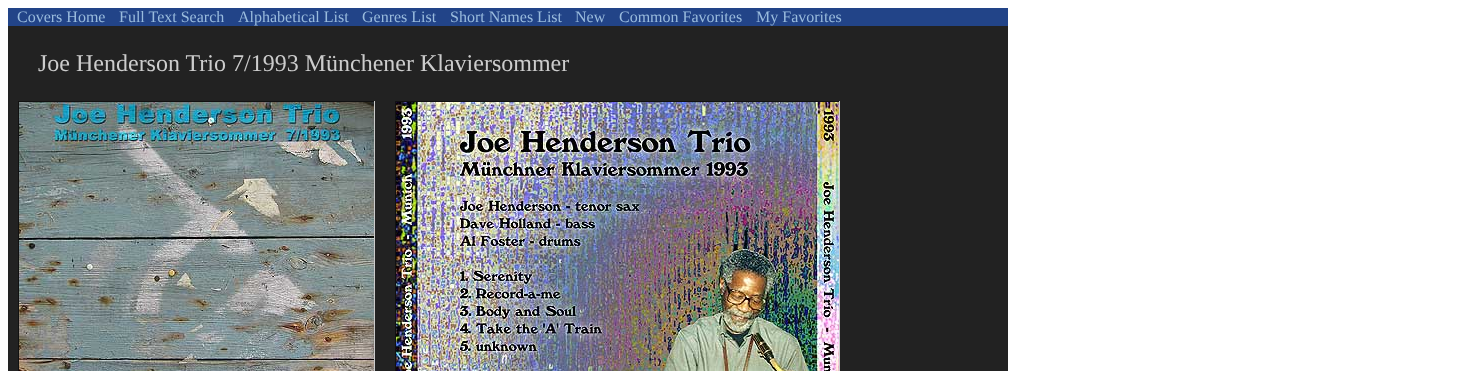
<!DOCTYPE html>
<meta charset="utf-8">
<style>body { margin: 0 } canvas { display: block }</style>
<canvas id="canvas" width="1474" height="371"></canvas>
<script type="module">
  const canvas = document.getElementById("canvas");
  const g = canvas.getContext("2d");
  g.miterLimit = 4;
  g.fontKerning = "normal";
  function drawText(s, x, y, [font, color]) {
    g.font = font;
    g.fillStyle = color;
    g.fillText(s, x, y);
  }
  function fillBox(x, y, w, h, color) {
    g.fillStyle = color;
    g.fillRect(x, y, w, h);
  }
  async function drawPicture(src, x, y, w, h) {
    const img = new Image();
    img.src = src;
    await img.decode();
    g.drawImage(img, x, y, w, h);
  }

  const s1 = ["16px Liberation Serif", "#99BBDD"];
  const s2 = ["24px Liberation Serif", "#CCCCCC"];

  fillBox(0, 0, 1474, 371, "#FFFFFF");
  fillBox(8, 8, 1000, 18, "#224488");
  drawText("Covers Home", 17, 22, s1);
  drawText("Full Text Search", 119, 22, s1);
  drawText("Alphabetical List", 238, 22, s1);
  drawText("Genres List", 362, 22, s1);
  drawText("Short Names List", 450, 22, s1);
  drawText("New", 575, 22, s1);
  drawText("Common Favorites", 619, 22, s1);
  drawText("My Favorites", 756, 22, s1);
  fillBox(8, 26, 1000, 345, "#222222");
  drawText("Joe Henderson Trio 7/1993 Münchener Klaviersommer", 38, 71, s2);
  fillBox(18, 101, 357, 1, "#111111");
  fillBox(374, 101, 1, 270, "#CCCCCC");
  fillBox(18, 101, 1, 270, "#111111");
  await drawPicture("pic1.png", 19, 102, 355, 269);
  fillBox(395, 101, 445, 1, "#111111");
  fillBox(839, 101, 1, 270, "#CCCCCC");
  fillBox(395, 101, 1, 270, "#111111");
  await drawPicture("pic2.png", 396, 102, 443, 269);
</script>
